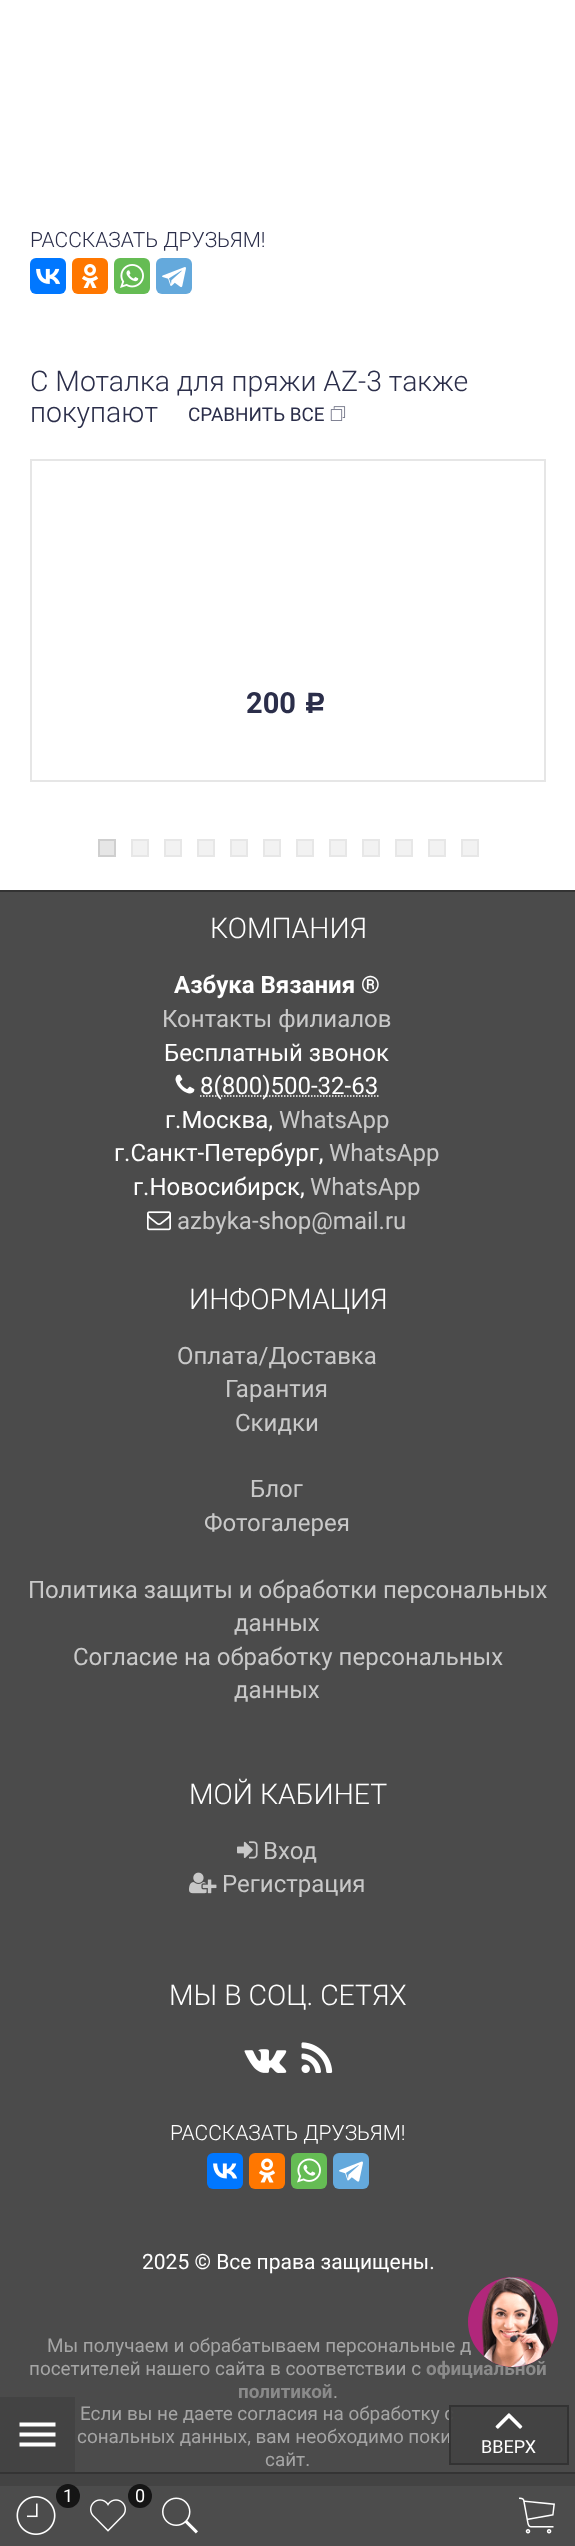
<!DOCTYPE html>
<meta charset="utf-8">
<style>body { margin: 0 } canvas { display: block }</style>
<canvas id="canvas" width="575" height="2546"></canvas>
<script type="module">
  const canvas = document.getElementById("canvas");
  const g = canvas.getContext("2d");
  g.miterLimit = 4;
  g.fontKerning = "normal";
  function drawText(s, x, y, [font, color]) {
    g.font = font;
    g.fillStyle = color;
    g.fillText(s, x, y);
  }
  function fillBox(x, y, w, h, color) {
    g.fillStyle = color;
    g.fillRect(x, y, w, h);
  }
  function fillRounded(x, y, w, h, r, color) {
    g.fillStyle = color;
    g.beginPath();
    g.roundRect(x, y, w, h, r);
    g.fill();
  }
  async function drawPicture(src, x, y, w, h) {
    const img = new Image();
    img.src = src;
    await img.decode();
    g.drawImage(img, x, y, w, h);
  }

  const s1 = ["300 21px Roboto", "#2B2E4A"];
  const s2 = ["300 28.4px Roboto", "#2B2E4A"];
  const s3 = ["18.9px Roboto", "#2B2E4A"];
  const s4 = ["bold 29px Roboto", "#2B2E4A"];
  const s5 = ["bold 29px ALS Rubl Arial", "#2B2E4A"];
  const s6 = ["300 28.4px Roboto", "#FFFFFF"];
  const s7 = ["bold 24px Roboto", "#FFFFFF"];
  const s8 = ["24px Roboto", "#C9C9C9"];
  const s9 = ["24px Roboto", "#FFFFFF"];
  const s10 = ["300 21px Roboto", "#FFFFFF"];
  const s11 = ["21px Roboto", "#FFFFFF"];
  const s12 = ["18.9px Roboto", "#A5A5A5"];
  const s13 = ["bold 18.9px Roboto", "#8A8A8A"];
  const s14 = ["18px Roboto", "#FFFFFF"];

  fillBox(0, 0, 575, 2546, "#FFFFFF");
  drawText("РАССКАЗАТЬ ДРУЗЬЯМ!", 30, 247, s1);
  fillRounded(30, 258, 36, 36, 6, "#0077FF");
  await drawPicture("pic1.png", 36, 268, 24, 16);
  fillRounded(72, 258, 36, 36, 6, "#FF7700");
  await drawPicture("pic2.png", 82, 264, 17, 24);
  fillRounded(114, 258, 36, 36, 6, "#65BC54");
  await drawPicture("pic3.png", 120, 264, 24, 24);
  fillRounded(156, 258, 36, 36, 6, "#64A9DC");
  await drawPicture("pic4.png", 162, 267, 24, 21);
  drawText("С Моталка для пряжи AZ-3 также", 30, 391, s2);
  drawText("покупают", 30, 422, s2);
  drawText("СРАВНИТЬ ВСЕ", 188, 421, s3);
  await drawPicture("pic5.png", 330, 406, 16, 15);
  g.strokeStyle = "#E6E6E6";
  g.lineWidth = 2;
  g.strokeRect(31, 460, 514, 321);
  drawText("200", 246, 713, s4);
  drawText("Р", 304, 713, s5);
  g.fillStyle = "#E6E6E6";
  g.beginPath();
  g.rect(99, 840, 16, 16);
  g.fill();
  g.strokeStyle = "#CFCFCF";
  g.stroke();
  g.fillStyle = "#F2F2F2";
  g.beginPath();
  g.rect(132, 840, 16, 16);
  g.fill();
  g.strokeStyle = "#E7E7E7";
  g.stroke();
  g.beginPath();
  g.rect(165, 840, 16, 16);
  g.fill();
  g.stroke();
  g.beginPath();
  g.rect(198, 840, 16, 16);
  g.fill();
  g.stroke();
  g.beginPath();
  g.rect(231, 840, 16, 16);
  g.fill();
  g.stroke();
  g.beginPath();
  g.rect(264, 840, 16, 16);
  g.fill();
  g.stroke();
  g.beginPath();
  g.rect(297, 840, 16, 16);
  g.fill();
  g.stroke();
  g.beginPath();
  g.rect(330, 840, 16, 16);
  g.fill();
  g.stroke();
  g.beginPath();
  g.rect(363, 840, 16, 16);
  g.fill();
  g.stroke();
  g.beginPath();
  g.rect(396, 840, 16, 16);
  g.fill();
  g.stroke();
  g.beginPath();
  g.rect(429, 840, 16, 16);
  g.fill();
  g.stroke();
  g.beginPath();
  g.rect(462, 840, 16, 16);
  g.fill();
  g.stroke();
  fillBox(0, 892, 575, 1594, "#4B4B4B");
  fillBox(0, 890, 575, 2, "#333333");
  drawText("КОМПАНИЯ", 210, 938, s6);
  drawText("Азбука Вязания ®", 174, 993, s7);
  drawText("Контакты филиалов", 162, 1027, s8);
  drawText("Бесплатный звонок", 164, 1061, s9);
  await drawPicture("pic6.png", 175, 1074, 20, 20);
  g.beginPath();
  g.moveTo(200, 1096);
  g.lineTo(378.5, 1096);
  g.strokeStyle = "#FFFFFF";
  g.lineWidth = 1.5;
  g.setLineDash([1.5, 1.5]);
  g.stroke();
  drawText("8(800)500-32-63", 200, 1094, s9);
  drawText("г.Москва,", 165, 1128, s9);
  drawText("WhatsApp", 279, 1128, s8);
  drawText("г.Санкт-Петербург,", 114, 1161, s9);
  drawText("WhatsApp", 329, 1161, s8);
  drawText("г.Новосибирск,", 133, 1195, s9);
  drawText("WhatsApp", 310, 1195, s8);
  await drawPicture("pic7.png", 147, 1211, 24, 20);
  drawText("azbyka-shop@mail.ru", 177, 1229, s8);
  drawText("ИНФОРМАЦИЯ", 189, 1309, s6);
  drawText("Оплата/Доставка", 177, 1364, s8);
  drawText("Гарантия", 225, 1397, s8);
  drawText("Скидки", 235, 1431, s8);
  drawText("Блог", 250, 1497, s8);
  drawText("Фотогалерея", 204, 1531, s8);
  drawText("Политика защиты и обработки персональных", 28, 1598, s8);
  drawText("данных", 234, 1631, s8);
  drawText("Cогласие на обработку персональных", 73, 1665, s8);
  drawText("данных", 234, 1698, s8);
  drawText("МОЙ КАБИНЕТ", 189, 1804, s6);
  await drawPicture("pic8.png", 237, 1841, 21, 18);
  drawText("Вход", 263, 1859, s8);
  await drawPicture("pic9.png", 189, 1872, 28, 22);
  drawText("Регистрация", 222, 1892, s8);
  drawText("МЫ В СОЦ. СЕТЯХ", 169, 2005, s6);
  await drawPicture("pic10.png", 244, 2049, 43, 24);
  await drawPicture("pic11.png", 301, 2042, 32, 31);
  drawText("РАССКАЗАТЬ ДРУЗЬЯМ!", 170, 2140, s10);
  fillRounded(207, 2153, 36, 36, 6, "#0077FF");
  await drawPicture("pic12.png", 213, 2163, 24, 16);
  fillRounded(249, 2153, 36, 36, 6, "#FF7700");
  await drawPicture("pic13.png", 259, 2158, 16, 25);
  fillRounded(291, 2153, 36, 36, 6, "#65BC54");
  await drawPicture("pic14.png", 297, 2158, 24, 25);
  fillRounded(333, 2153, 36, 36, 6, "#64A9DC");
  await drawPicture("pic15.png", 339, 2161, 24, 21);
  drawText("2025 © Все права защищены.", 142, 2269, s11);
  drawText("Мы получаем и обрабатываем персональные д", 47, 2352, s12);
  drawText("посетителей нашего сайта в соответствии с", 29, 2375, s12);
  drawText("официальной", 426, 2375, s13);
  drawText("политикой", 238, 2398, s13);
  drawText(".", 333, 2398, s12);
  drawText("Если вы не даете согласия на обработку с", 80, 2420, s12);
  drawText("сональных данных, вам необходимо поки", 77, 2443, s12);
  drawText("сайт.", 265, 2466, s12);
  fillBox(0, 2397, 75, 75, "rgba(66, 66, 66, 0.95)");
  g.fillStyle = "#FFFFFF";
  g.beginPath();
  g.moveTo(19.5, 2446.5);
  g.lineTo(19.5, 2442.5);
  g.lineTo(55.5, 2442.5);
  g.lineTo(55.5, 2446.5);
  g.closePath();
  g.moveTo(19.5, 2436.5);
  g.lineTo(19.5, 2432.5);
  g.lineTo(55.5, 2432.5);
  g.lineTo(55.5, 2436.5);
  g.closePath();
  g.moveTo(19.5, 2422.5);
  g.lineTo(55.5, 2422.5);
  g.lineTo(55.5, 2426.5);
  g.lineTo(19.5, 2426.5);
  g.closePath();
  g.fill();
  fillBox(0, 2474, 575, 72, "rgba(66, 66, 66, 0.95)");
  fillBox(0, 2472, 575, 2, "#343434");
  fillBox(449, 2405, 120, 60, "rgba(66, 66, 66, 0.95)");
  g.strokeStyle = "rgba(51, 51, 51, 0.95)";
  g.lineWidth = 2;
  g.setLineDash([]);
  g.strokeRect(450, 2406, 118, 58);
  await drawPicture("pic16.png", 495, 2413, 28, 16);
  drawText("ВВЕРХ", 481, 2453, s14);
  await drawPicture("pic17.png", 16, 2496, 40, 39);
  g.fillStyle = "#151515";
  g.beginPath();
  g.arc(68, 2496, 12, 0, Math.PI * 2);
  g.fill();
  drawText("1", 63, 2502, s14);
  g.fillStyle = "#151515";
  g.beginPath();
  g.arc(140, 2496, 12, 0, Math.PI * 2);
  g.fill();
  drawText("0", 135, 2502, s14);
  await drawPicture("pic18.png", 90, 2499, 36, 33);
  await drawPicture("pic19.png", 162, 2497, 36, 37);
  await drawPicture("pic20.png", 519, 2497, 36, 37);
  g.fillStyle = "#B1277B";
  g.beginPath();
  g.arc(513, 2322, 45, 0, Math.PI * 2);
  g.fill();
  await drawPicture("pic21.png", 481, 2277, 71, 90);
</script>
